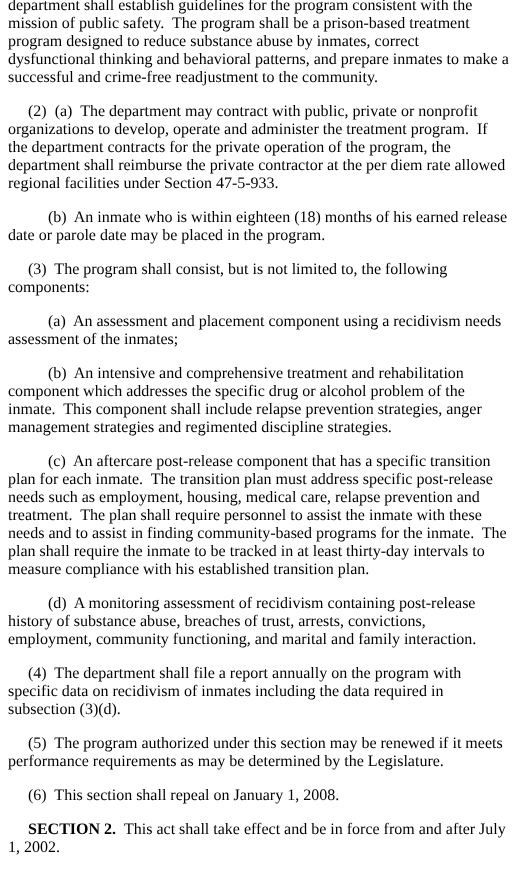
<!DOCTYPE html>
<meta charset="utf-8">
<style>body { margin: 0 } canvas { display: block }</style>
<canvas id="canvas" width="517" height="872"></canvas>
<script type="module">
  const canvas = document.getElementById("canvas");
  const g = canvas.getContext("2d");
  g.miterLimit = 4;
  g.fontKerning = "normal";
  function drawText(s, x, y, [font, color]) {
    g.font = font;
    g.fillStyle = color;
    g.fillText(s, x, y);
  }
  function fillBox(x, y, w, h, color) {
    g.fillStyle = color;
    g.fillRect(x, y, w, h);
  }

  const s1 = ["16px Liberation Serif", "#000000"];
  const s2 = ["bold 16px Liberation Serif", "#000000"];

  fillBox(0, 0, 517, 872, "#FFFFFF");
  drawText("department shall establish guidelines for the program consistent with the", 8, 10, s1);
  drawText("mission of public safety.  The program shall be a prison-based treatment", 8, 28, s1);
  drawText("program designed to reduce substance abuse by inmates, correct", 8, 46, s1);
  drawText("dysfunctional thinking and behavioral patterns, and prepare inmates to make a", 8, 64, s1);
  drawText("successful and crime-free readjustment to the community.", 8, 82, s1);
  drawText("(2)  (a)  The department may contract with public, private or nonprofit", 28, 116, s1);
  drawText("organizations to develop, operate and administer the treatment program.  If", 8, 134, s1);
  drawText("the department contracts for the private operation of the program, the", 8, 152, s1);
  drawText("department shall reimburse the private contractor at the per diem rate allowed", 8, 170, s1);
  drawText("regional facilities under Section 47-5-933.", 8, 188, s1);
  drawText("(b)  An inmate who is within eighteen (18) months of his earned release", 48, 222, s1);
  drawText("date or parole date may be placed in the program.", 8, 240, s1);
  drawText("(3)  The program shall consist, but is not limited to, the following", 28, 274, s1);
  drawText("components:", 8, 292, s1);
  drawText("(a)  An assessment and placement component using a recidivism needs", 48, 326, s1);
  drawText("assessment of the inmates;", 8, 344, s1);
  drawText("(b)  An intensive and comprehensive treatment and rehabilitation", 48, 378, s1);
  drawText("component which addresses the specific drug or alcohol problem of the", 8, 396, s1);
  drawText("inmate.  This component shall include relapse prevention strategies, anger", 8, 414, s1);
  drawText("management strategies and regimented discipline strategies.", 8, 432, s1);
  drawText("(c)  An aftercare post-release component that has a specific transition", 48, 466, s1);
  drawText("plan for each inmate.  The transition plan must address specific post-release", 8, 484, s1);
  drawText("needs such as employment, housing, medical care, relapse prevention and", 8, 502, s1);
  drawText("treatment.  The plan shall require personnel to assist the inmate with these", 8, 520, s1);
  drawText("needs and to assist in finding community-based programs for the inmate.  The", 8, 538, s1);
  drawText("plan shall require the inmate to be tracked in at least thirty-day intervals to", 8, 556, s1);
  drawText("measure compliance with his established transition plan.", 8, 574, s1);
  drawText("(d)  A monitoring assessment of recidivism containing post-release", 48, 608, s1);
  drawText("history of substance abuse, breaches of trust, arrests, convictions,", 8, 626, s1);
  drawText("employment, community functioning, and marital and family interaction.", 8, 644, s1);
  drawText("(4)  The department shall file a report annually on the program with", 28, 678, s1);
  drawText("specific data on recidivism of inmates including the data required in", 8, 696, s1);
  drawText("subsection (3)(d).", 8, 714, s1);
  drawText("(5)  The program authorized under this section may be renewed if it meets", 28, 748, s1);
  drawText("performance requirements as may be determined by the Legislature.", 8, 766, s1);
  drawText("(6)  This section shall repeal on January 1, 2008.", 28, 800, s1);
  drawText("SECTION 2.", 28, 834, s2);
  drawText("This act shall take effect and be in force from and after July", 124, 834, s1);
  drawText("1, 2002.", 8, 852, s1);
</script>
